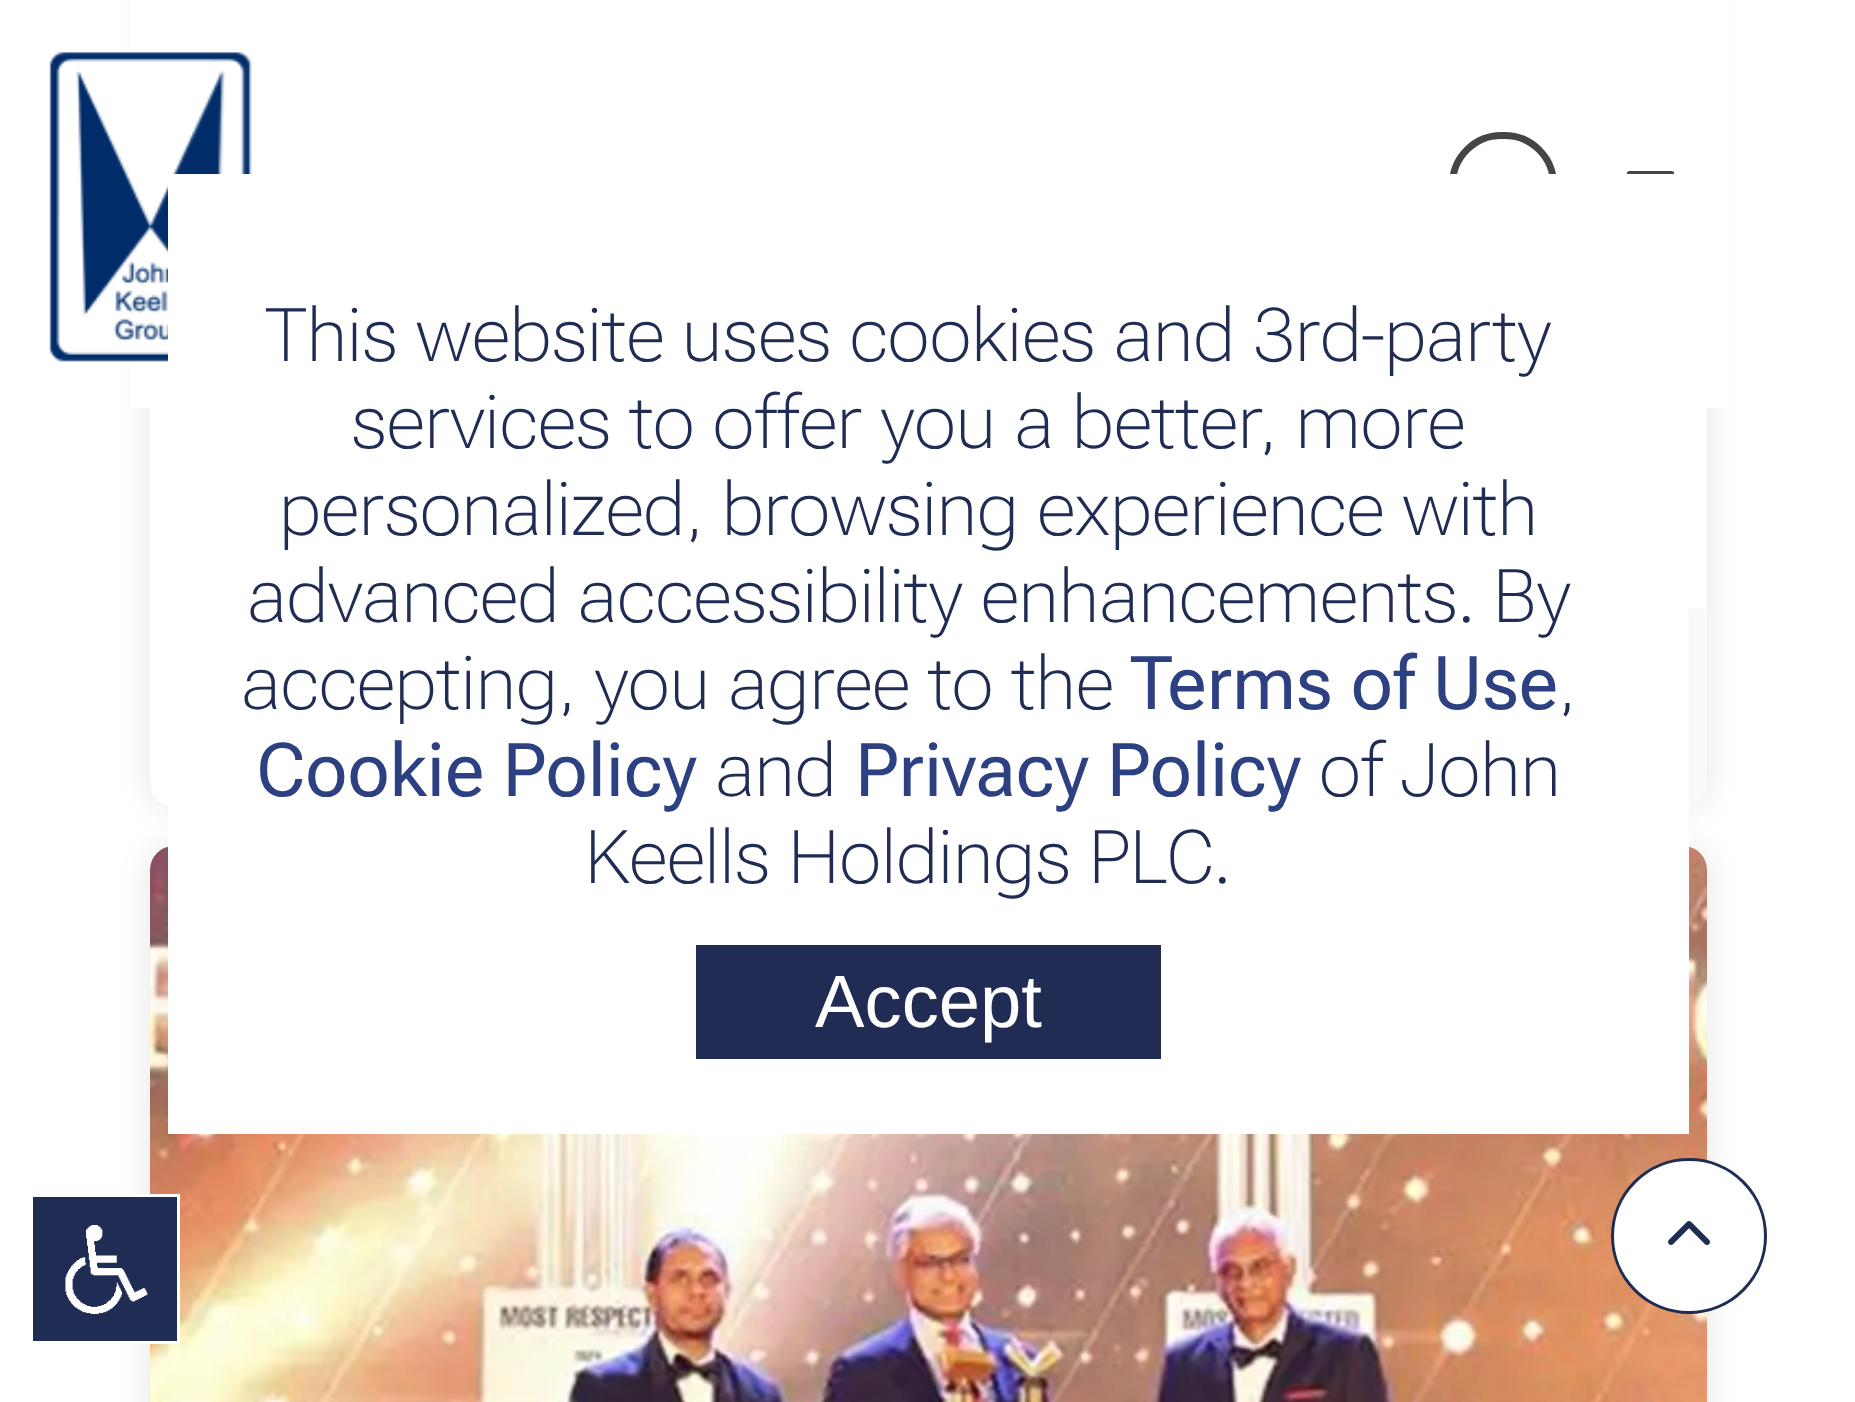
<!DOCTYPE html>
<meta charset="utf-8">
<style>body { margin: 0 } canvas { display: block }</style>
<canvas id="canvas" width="1855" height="1402"></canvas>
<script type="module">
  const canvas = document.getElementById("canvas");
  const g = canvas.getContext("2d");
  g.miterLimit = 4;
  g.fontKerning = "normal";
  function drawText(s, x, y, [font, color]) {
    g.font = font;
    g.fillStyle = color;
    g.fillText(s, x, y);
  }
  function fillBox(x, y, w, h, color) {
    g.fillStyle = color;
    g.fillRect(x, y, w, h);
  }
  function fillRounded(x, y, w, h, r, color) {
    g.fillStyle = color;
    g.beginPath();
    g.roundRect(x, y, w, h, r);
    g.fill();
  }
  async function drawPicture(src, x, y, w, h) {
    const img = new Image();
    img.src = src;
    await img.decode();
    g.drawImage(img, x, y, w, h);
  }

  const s1 = ["100 74.25px Roboto Flex", "#202C54"];
  const s2 = ["74.25px Roboto Flex", "#2C4082"];
  const s3 = ["74.25px Liberation Sans", "#FFFFFF"];

  fillBox(0, 0, 1855, 1402, "#FFFFFF");
  g.fillStyle = "rgba(0, 0, 0, 0.1)";
  g.filter = "blur(15px)";
  g.beginPath();
  g.roundRect(150, -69, 1557, 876, 24);
  g.fill();
  g.filter = "none";
  fillRounded(150, -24, 1557, 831, 24, "#FFFFFF");
  g.fillStyle = "rgba(0, 0, 0, 0.1)";
  g.filter = "blur(15px)";
  g.beginPath();
  g.roundRect(150, 846, 1557, 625, 24);
  g.fill();
  g.filter = "none";
  g.fillStyle = "#F9F9F9";
  g.beginPath();
  g.roundRect(1257, 609, 450, 198, [0, 0, 24, 0]);
  g.fill();
  await drawPicture("pic1.png", 150, 846, 1557, 556);
  fillBox(131, 0, 1595, 408, "#FFFFFF");
  await drawPicture("pic2.png", 49, 52, 203, 310);
  g.beginPath();
  g.roundRect(1452.5, 135.5, 101, 98, 49);
  g.strokeStyle = "#454545";
  g.lineWidth = 7;
  g.stroke();
  g.beginPath();
  g.moveTo(1629.5, 173.5);
  g.lineTo(1671.5, 173.5);
  g.lineWidth = 5.2;
  g.lineCap = "round";
  g.stroke();
  fillBox(168, 174, 1521, 960, "#FFFFFF");
  drawText("This website uses cookies and 3rd-party", 265, 361, s1);
  drawText("services to offer you a better, more", 351, 448, s1);
  drawText("personalized, browsing experience with", 279, 535, s1);
  drawText("advanced accessibility enhancements. By", 247, 622, s1);
  drawText("accepting, you agree to the", 241, 709, s1);
  drawText("Terms of Use", 1130, 709, s2);
  drawText(",", 1558, 709, s1);
  drawText("Cookie Policy", 256, 796, s2);
  drawText("and", 715, 796, s1);
  drawText("Privacy Policy", 855, 796, s2);
  drawText("of John", 1319, 796, s1);
  drawText("Keells Holdings PLC.", 585, 883, s1);
  fillBox(696, 945, 465, 114, "#202C54");
  drawText("Accept", 815, 1027, s3);
  g.fillStyle = "#1F2C54";
  g.beginPath();
  g.rect(31.5, 1195.5, 147, 147);
  g.fill();
  g.strokeStyle = "#FFFFFF";
  g.lineWidth = 3;
  g.stroke();
  await drawPicture("pic3.png", 65, 1225, 83, 89);
  g.fillStyle = "#FFFFFF";
  g.beginPath();
  g.arc(1689, 1236, 76.5, 0, Math.PI * 2);
  g.fill();
  g.strokeStyle = "#1F2C54";
  g.stroke();
  await drawPicture("pic4.png", 1668, 1221, 42, 24);
</script>
